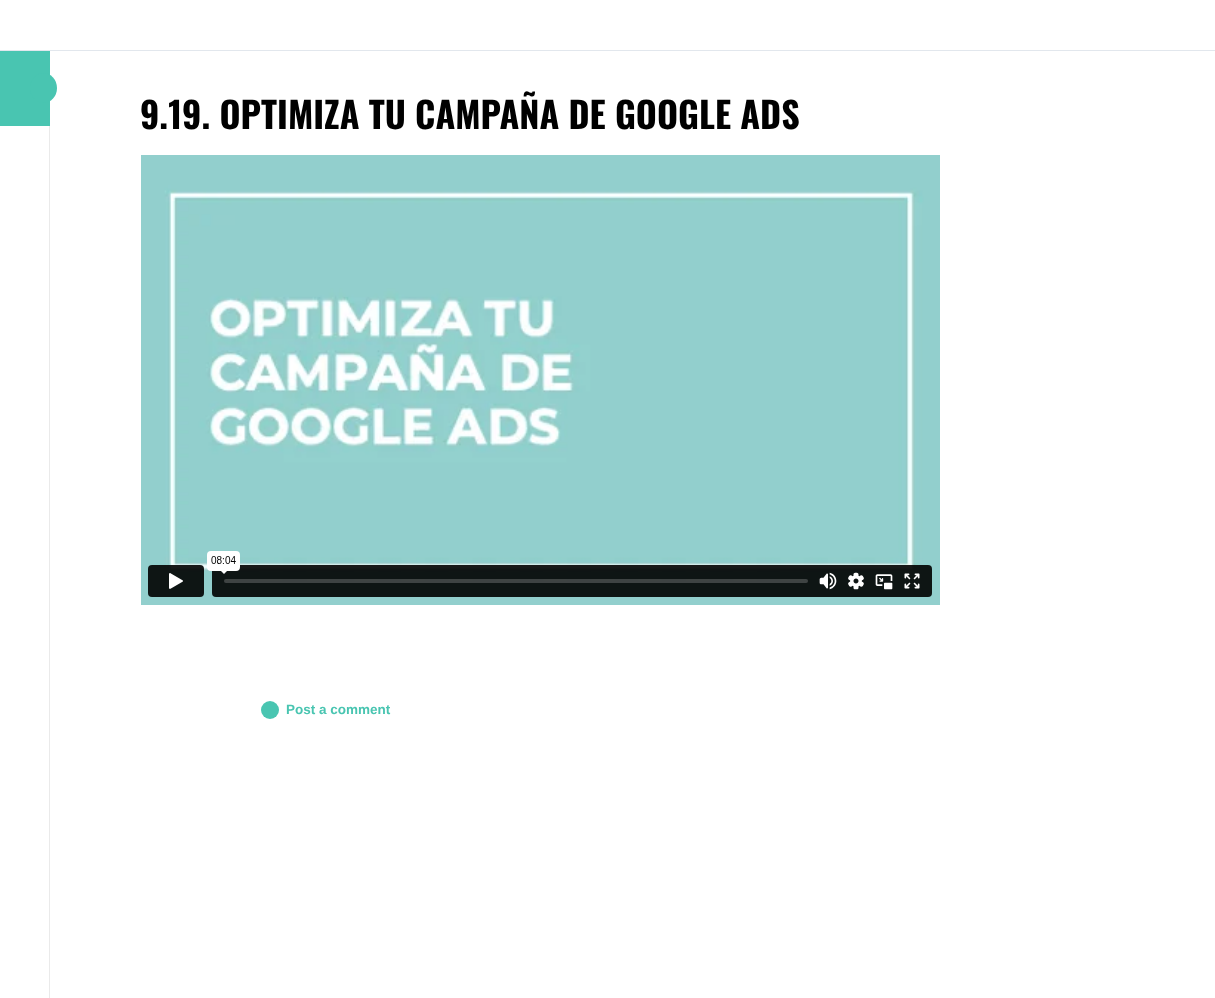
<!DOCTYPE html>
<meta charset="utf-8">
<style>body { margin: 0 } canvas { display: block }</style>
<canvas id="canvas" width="1215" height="998"></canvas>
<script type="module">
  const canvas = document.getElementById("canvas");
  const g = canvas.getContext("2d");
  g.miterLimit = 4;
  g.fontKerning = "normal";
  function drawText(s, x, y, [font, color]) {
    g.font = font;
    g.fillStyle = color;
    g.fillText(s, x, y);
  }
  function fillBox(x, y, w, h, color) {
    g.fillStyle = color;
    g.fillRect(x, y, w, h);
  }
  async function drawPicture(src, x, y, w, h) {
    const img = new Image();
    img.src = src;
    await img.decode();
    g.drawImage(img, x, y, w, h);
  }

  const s1 = ["bold 36px Oswald", "#000000"];
  const s2 = ["bold 13.5px Liberation Sans", "#49C5B1"];

  fillBox(0, 0, 1215, 998, "#FFFFFF");
  fillBox(49, 126, 1, 872, "#EAEAEA");
  fillBox(0, 51, 50, 75, "#49C5B1");
  g.beginPath();
  g.ellipse(43.5, 88, 13.5, 15, 0, 0, Math.PI * 2);
  g.fill();
  fillBox(0, 50, 1215, 1, "#E2E7ED");
  drawText("9.19. OPTIMIZA TU CAMPAÑA DE GOOGLE ADS", 140, 129, s1);
  await drawPicture("pic1.png", 141, 155, 799, 450);
  g.fillStyle = "#49C5B1";
  g.beginPath();
  g.arc(270, 710, 9, 0, Math.PI * 2);
  g.fill();
  drawText("Post a comment", 286, 714, s2);
</script>
